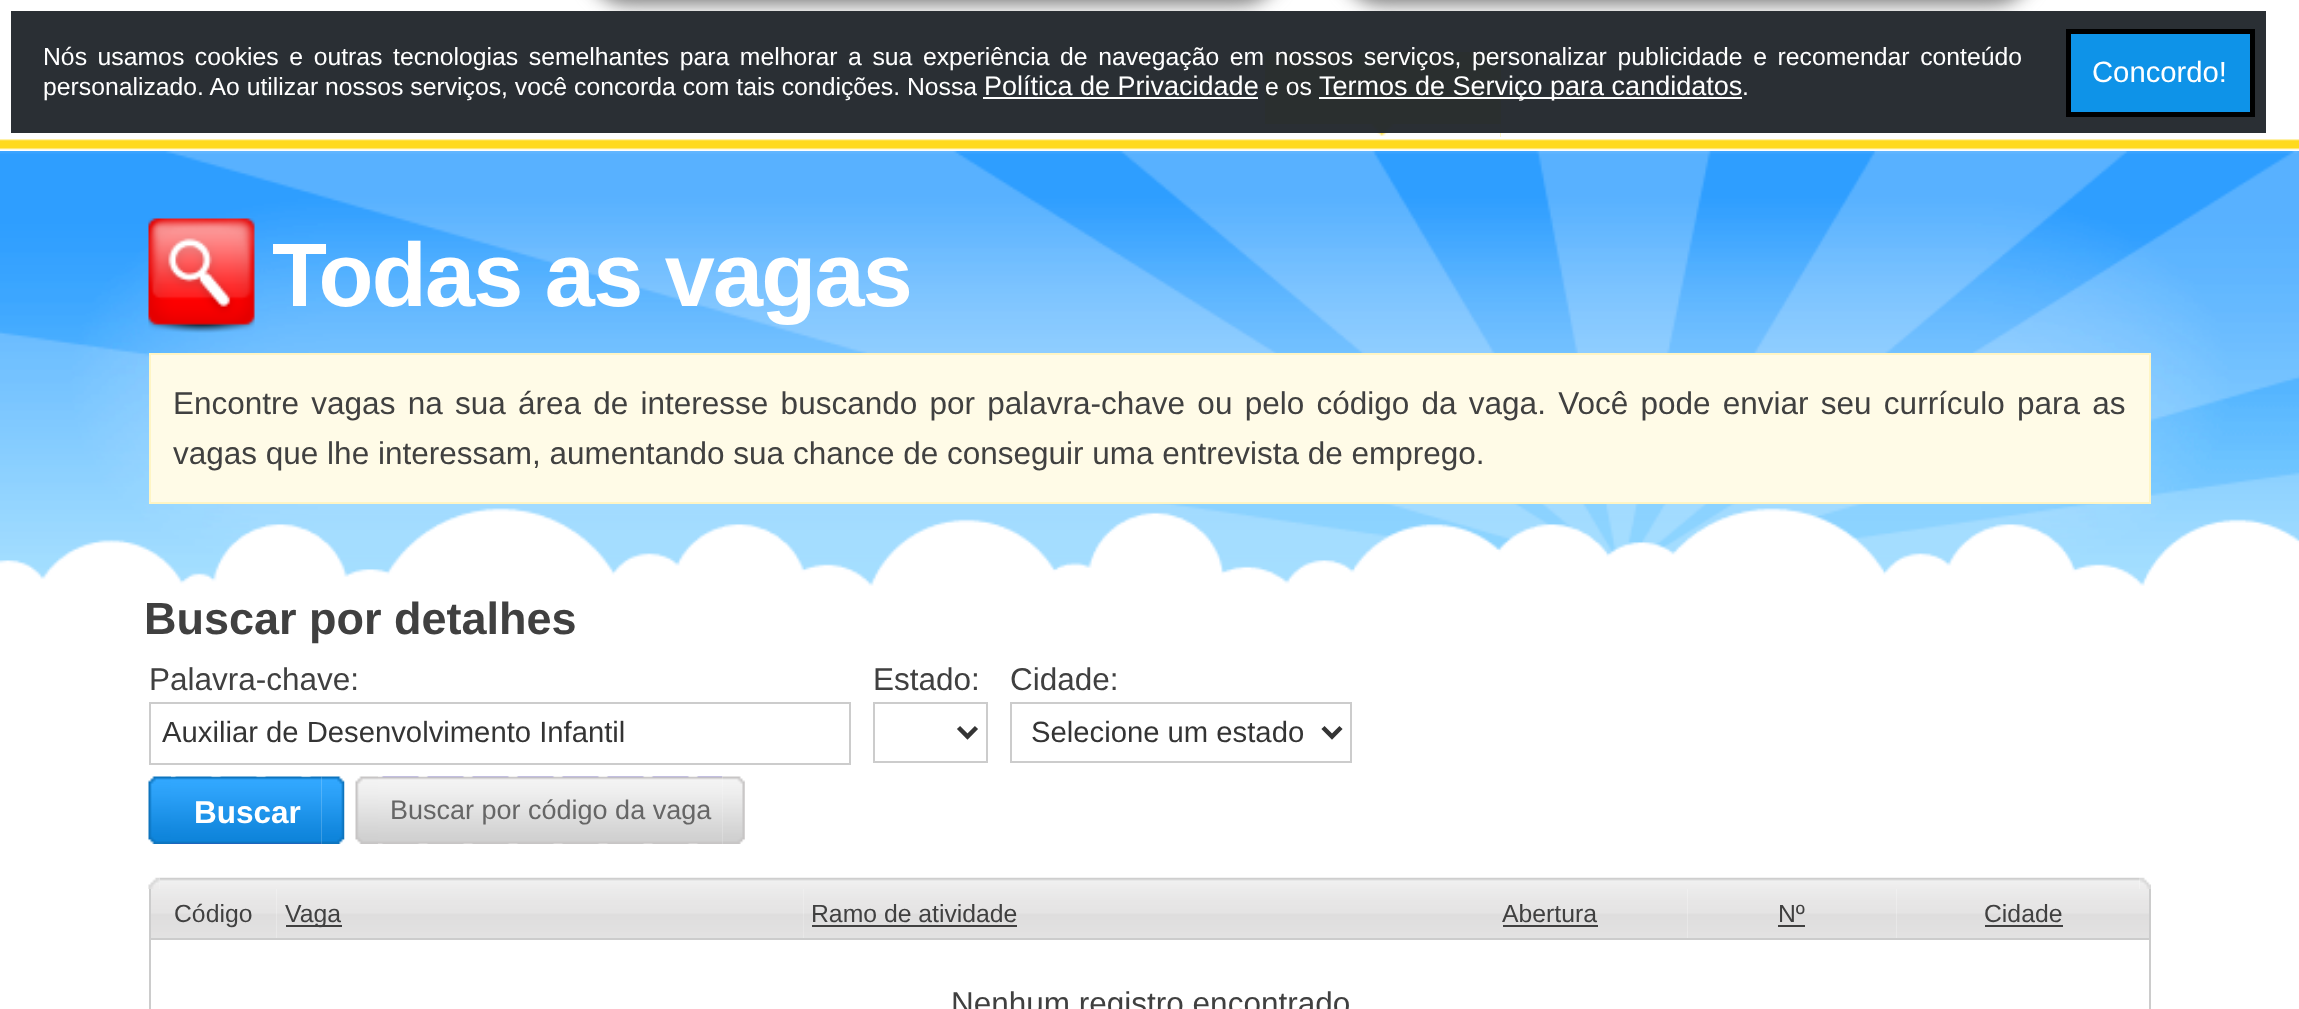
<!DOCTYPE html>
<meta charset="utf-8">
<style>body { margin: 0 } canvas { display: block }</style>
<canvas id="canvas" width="2299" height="1009"></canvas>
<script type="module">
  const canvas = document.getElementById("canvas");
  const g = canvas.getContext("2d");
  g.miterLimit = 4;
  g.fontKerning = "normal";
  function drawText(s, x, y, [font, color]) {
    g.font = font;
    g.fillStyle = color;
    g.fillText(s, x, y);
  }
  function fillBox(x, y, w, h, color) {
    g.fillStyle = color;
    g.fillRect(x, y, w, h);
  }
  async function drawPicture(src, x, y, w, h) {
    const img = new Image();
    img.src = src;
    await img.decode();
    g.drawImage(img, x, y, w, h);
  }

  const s1 = ["24.75px Liberation Sans", "#FFFFFF"];
  const s2 = ["27px Liberation Sans", "#FFFFFF"];
  const s3 = ["29.25px Liberation Sans", "#FFFFFF"];
  const s4 = ["bold 90px Liberation Sans", "#FFFFFF"];
  const s5 = ["31.5px Liberation Sans", "#404040"];
  const s6 = ["bold 45px Liberation Sans", "#404040"];
  const s7 = ["29.25px Liberation Sans", "#343434"];
  const s8 = ["bold 31.5px Liberation Sans", "#FFFFFF"];
  const s9 = ["27px Liberation Sans", "#666666"];
  const s10 = ["24.75px Liberation Sans", "#404040"];

  fillBox(0, 0, 2299, 1009, "#FFFFFF");
  await drawPicture("pic1.png", 0, 151, 2299, 435);
  g.fillStyle = "#818181";
  g.filter = "blur(9px)";
  g.beginPath();
  g.roundRect(585, -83, 698, 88, 56);
  g.fill();
  g.filter = "none";
  g.filter = "blur(9px)";
  g.beginPath();
  g.roundRect(1339, -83, 697, 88, 56);
  g.fill();
  g.filter = "none";
  fillBox(1265, 52, 236, 85, "#FFDA1E");
  await drawPicture("pic3.png", 1265, 124, 236, 13);
  fillBox(11, 11, 2255, 122, "rgba(38, 43, 48, 0.98)");
  g.wordSpacing = "3.7px";
  drawText("Nós usamos cookies e outras tecnologias semelhantes para melhorar a sua experiência de navegação em nossos serviços, personalizar publicidade e recomendar conteúdo", 43, 65, s1);
  g.wordSpacing = "0px";
  drawText("personalizado. Ao utilizar nossos serviços, você concorda com tais condições. Nossa", 43, 95, s1);
  drawText("Política de Privacidade", 984, 95, s2);
  fillBox(983, 97, 275, 2, "#FFFFFF");
  drawText("e os", 1265, 95, s1);
  fillBox(1319, 97, 423, 2, "#FFFFFF");
  drawText("Termos de Serviço para candidatos", 1319, 95, s2);
  drawText(".", 1742, 95, s1);
  g.fillStyle = "#0E93E8";
  g.beginPath();
  g.rect(2068.5, 31.5, 184, 83);
  g.fill();
  g.strokeStyle = "#000000";
  g.lineWidth = 5;
  g.stroke();
  drawText("Concordo!", 2092, 82, s3);
  await drawPicture("pic2.png", 0, 139, 2299, 11);
  await drawPicture("pic4.png", 148, 218, 107, 115);
  g.letterSpacing = "-1.75px";
  drawText("Todas as vagas", 272, 306, s4);
  g.fillStyle = "#FFFBE7";
  g.beginPath();
  g.rect(150, 354, 2000, 149);
  g.fill();
  g.strokeStyle = "#FFF5C4";
  g.lineWidth = 2;
  g.stroke();
  g.letterSpacing = "0px";
  g.wordSpacing = "3.5px";
  drawText("Encontre vagas na sua área de interesse buscando por palavra-chave ou pelo código da vaga. Você pode enviar seu currículo para as", 173, 414, s5);
  g.wordSpacing = "0px";
  drawText("vagas que lhe interessam, aumentando sua chance de conseguir uma entrevista de emprego.", 173, 464, s5);
  drawText("Buscar por detalhes", 144, 634, s6);
  drawText("Palavra-chave:", 149, 690, s5);
  g.strokeStyle = "#CCCCCC";
  g.strokeRect(150, 703, 700, 61);
  drawText("Auxiliar de Desenvolvimento Infantil", 162, 742, s7);
  drawText("Estado:", 873, 690, s5);
  g.strokeRect(874, 703, 113, 59);
  g.beginPath();
  g.moveTo(958.5, 727.5);
  g.lineTo(967.5, 736.5);
  g.lineTo(976.5, 727.5);
  g.strokeStyle = "#343434";
  g.lineWidth = 4.5;
  g.stroke();
  drawText("Cidade:", 1010, 690, s5);
  g.strokeStyle = "#CCCCCC";
  g.lineWidth = 2;
  g.strokeRect(1011, 703, 340, 59);
  g.beginPath();
  g.moveTo(1323, 727.5);
  g.lineTo(1332, 736.5);
  g.lineTo(1341, 727.5);
  g.strokeStyle = "#343434";
  g.lineWidth = 4.5;
  g.stroke();
  drawText("Selecione um estado", 1031, 742, s7);
  await drawPicture("pic5.png", 148, 776, 23, 68);
  await drawPicture("pic6.png", 171, 776, 151, 68);
  drawText("Buscar", 194, 823, s8);
  await drawPicture("pic7.png", 321, 776, 24, 68);
  await drawPicture("pic8.png", 355, 776, 23, 68);
  await drawPicture("pic9.png", 378, 776, 345, 68);
  drawText("Buscar por código da vaga", 390, 819, s9);
  await drawPicture("pic10.png", 722, 776, 23, 68);
  await drawPicture("pic11.png", 159, 877, 1981, 12);
  fillBox(149, 887, 2, 122, "#CCCCCC");
  await drawPicture("pic12.png", 148, 877, 12, 12);
  fillBox(2149, 887, 2, 122, "#CCCCCC");
  await drawPicture("pic13.png", 2140, 877, 11, 12);
  await drawPicture("pic14.png", 151, 889, 126, 49);
  drawText("Código", 174, 922, s10);
  await drawPicture("pic15.png", 277, 889, 527, 49);
  fillBox(286, 925, 56, 2, "#404040");
  drawText("Vaga", 285, 922, s10);
  await drawPicture("pic16.png", 803, 889, 610, 49);
  drawText("Ramo de atividade", 811, 922, s10);
  fillBox(812, 925, 205, 2, "#404040");
  await drawPicture("pic17.png", 1413, 889, 275, 49);
  drawText("Abertura", 1502, 922, s10);
  fillBox(1503, 925, 95, 2, "#404040");
  await drawPicture("pic18.png", 1687, 889, 210, 49);
  drawText("Nº", 1778, 922, s10);
  fillBox(1778, 925, 27, 2, "#404040");
  await drawPicture("pic19.png", 1897, 889, 252, 49);
  fillBox(149, 938, 2002, 2, "#CCCCCC");
  drawText("Cidade", 1984, 922, s10);
  fillBox(1985, 925, 78, 2, "#404040");
  drawText("Nenhum registro encontrado", 951, 1014, s5);
</script>
